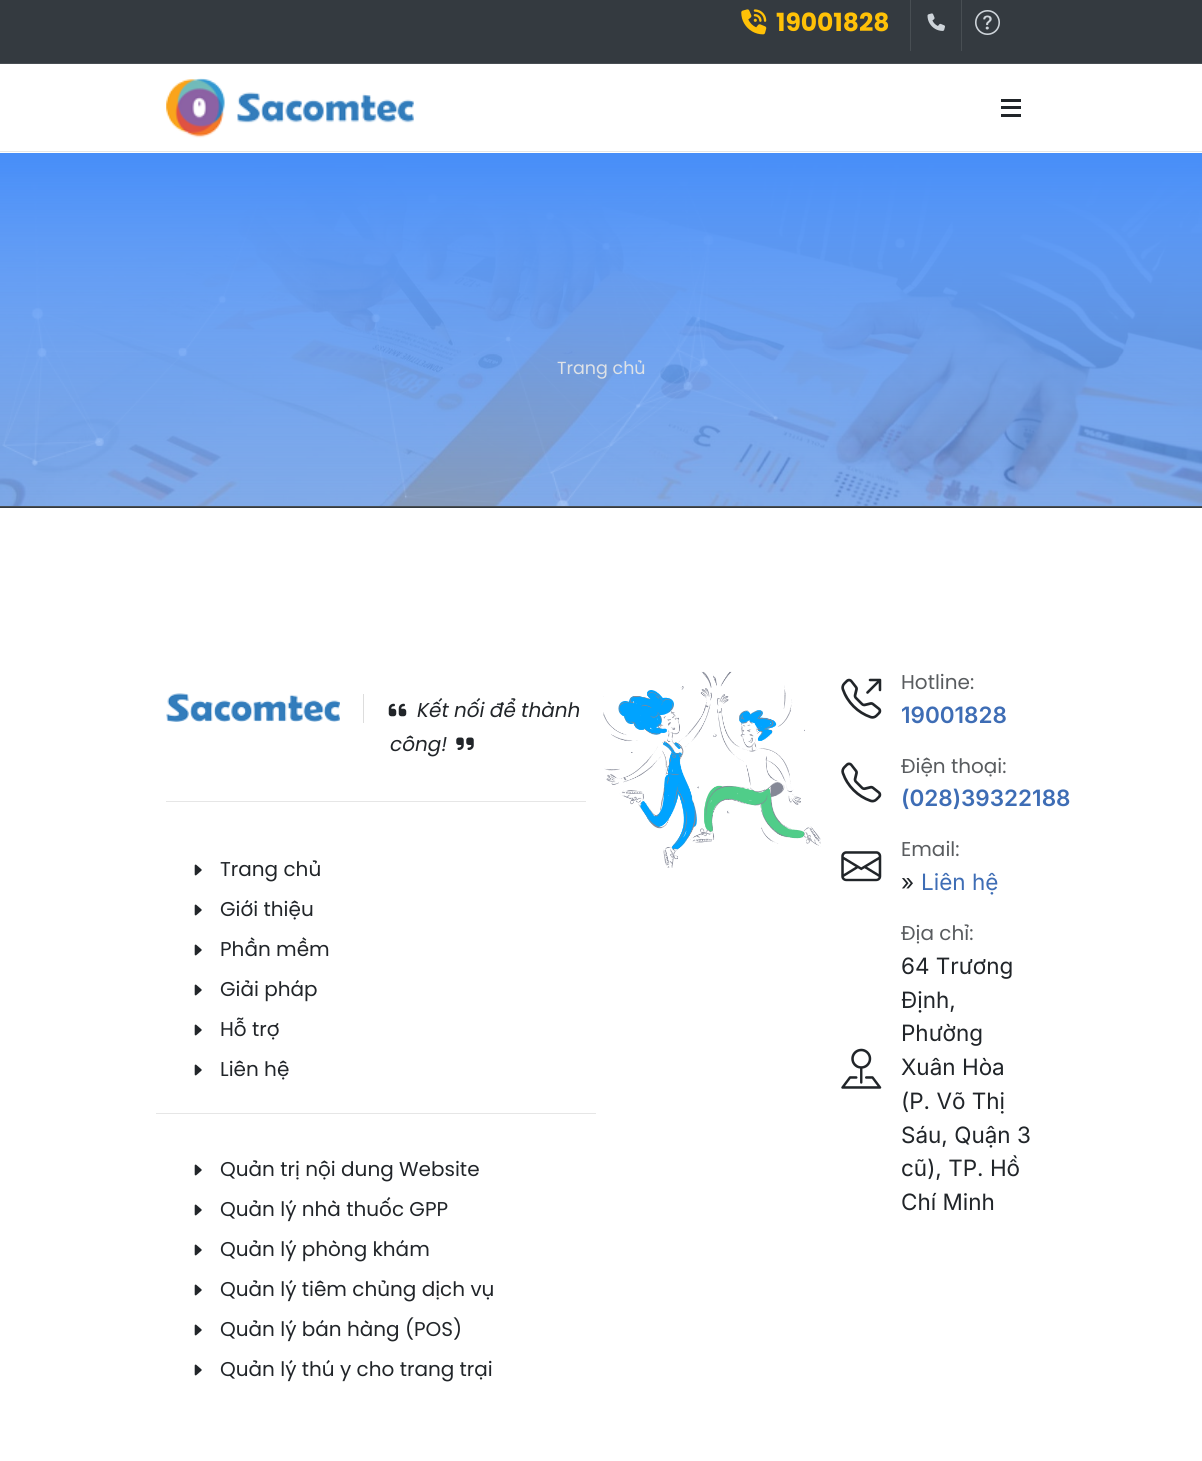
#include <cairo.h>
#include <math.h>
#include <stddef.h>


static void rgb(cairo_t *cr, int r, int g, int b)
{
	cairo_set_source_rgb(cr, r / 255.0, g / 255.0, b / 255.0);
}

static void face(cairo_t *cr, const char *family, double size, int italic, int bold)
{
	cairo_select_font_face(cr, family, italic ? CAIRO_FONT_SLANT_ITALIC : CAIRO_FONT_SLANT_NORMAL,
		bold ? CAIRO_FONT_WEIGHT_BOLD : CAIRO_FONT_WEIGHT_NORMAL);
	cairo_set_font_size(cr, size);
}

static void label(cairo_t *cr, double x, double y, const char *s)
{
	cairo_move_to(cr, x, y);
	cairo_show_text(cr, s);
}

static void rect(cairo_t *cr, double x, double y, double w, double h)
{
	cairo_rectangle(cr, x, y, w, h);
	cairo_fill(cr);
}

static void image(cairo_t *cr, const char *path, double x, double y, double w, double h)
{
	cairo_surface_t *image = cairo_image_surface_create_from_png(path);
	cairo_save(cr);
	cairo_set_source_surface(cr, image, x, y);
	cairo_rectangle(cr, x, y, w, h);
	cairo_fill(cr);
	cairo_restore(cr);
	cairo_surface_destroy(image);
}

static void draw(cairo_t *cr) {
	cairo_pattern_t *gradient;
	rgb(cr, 255, 255, 255);
	cairo_paint(cr);
	rgb(cr, 52, 58, 64);
	rect(cr, 0, 0, 1202, 63);
	rgb(cr, 72, 78, 83);
	rect(cr, 0, 63, 1202, 1);
	image(cr, "image0.png", 741, 9, 26, 26);
	face(cr, "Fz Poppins", 25, 0, 1);
	rgb(cr, 255, 193, 7);
	label(cr, 776, 31, "19001828");
	rgb(cr, 72, 78, 83);
	rect(cr, 910, 0, 1, 51);
	image(cr, "image1.png", 927, 13, 18, 18);
	rect(cr, 961, 0, 1, 51);
	image(cr, "image2.png", 975, 10, 25, 25);
	rgb(cr, 230, 230, 230);
	rect(cr, 0, 151, 1202, 1);
	image(cr, "image3.png", 166, 78, 248, 60);
	rgb(cr, 33, 37, 41);
	rect(cr, 1001, 106, 20, 3);
	rect(cr, 1001, 99, 20, 3);
	rect(cr, 1001, 114, 20, 3);
	rgb(cr, 52, 58, 64);
	rect(cr, 0, 507, 1202, 1);
	rgb(cr, 72, 78, 83);
	rect(cr, 0, 506, 1202, 1);
	image(cr, "image4.png", 0, 157, 1202, 349);
	image(cr, "image5.png", 2, 177, 903, 329);
	gradient = cairo_pattern_create_linear(601, 506, 601, 153);
	cairo_pattern_add_color_stop_rgba(gradient, 0, 0.424, 0.643, 0.973, 0.5);
	cairo_pattern_add_color_stop_rgba(gradient, 1, 0.275, 0.553, 0.973, 1);
	cairo_set_source(cr, gradient);
	cairo_pattern_destroy(gradient);
	rect(cr, 0, 153, 1202, 353);
	face(cr, "Fz Poppins", 17.5, 0, 0);
	rgb(cr, 222, 226, 230);
	label(cr, 557, 374, "Trang chủ");
	rgb(cr, 221, 221, 221);
	rect(cr, 363, 694, 1, 29);
	image(cr, "image6.png", 166, 693, 174, 29);
	image(cr, "image7.png", 388, 703, 19, 14);
	face(cr, "Fz Poppins", 20, 1, 0);
	rgb(cr, 33, 37, 41);
	label(cr, 416, 717, "Kết nối để thành");
	label(cr, 389, 751, "công!");
	image(cr, "image8.png", 456, 737, 18, 13);
	rgb(cr, 230, 230, 230);
	rect(cr, 166, 801, 420, 1);
	image(cr, "image9.png", 194, 864, 8, 12);
	face(cr, "Fz Poppins", 20, 0, 0);
	rgb(cr, 33, 37, 41);
	label(cr, 220, 876, "Trang chủ");
	image(cr, "image9.png", 194, 904, 8, 12);
	label(cr, 220, 916, "Giới thiệu");
	image(cr, "image9.png", 194, 944, 8, 12);
	label(cr, 220, 956, "Phần mềm");
	image(cr, "image9.png", 194, 984, 8, 12);
	label(cr, 220, 996, "Giải pháp");
	image(cr, "image9.png", 194, 1024, 8, 12);
	label(cr, 220, 1036, "Hỗ trợ");
	image(cr, "image9.png", 194, 1064, 8, 12);
	label(cr, 220, 1076, "Liên hệ");
	rgb(cr, 230, 230, 230);
	rect(cr, 156, 1113, 440, 1);
	image(cr, "image9.png", 194, 1164, 8, 12);
	rgb(cr, 33, 37, 41);
	label(cr, 220, 1176, "Quản trị nội dung Website");
	image(cr, "image9.png", 194, 1204, 8, 12);
	label(cr, 220, 1216, "Quản lý nhà thuốc GPP");
	image(cr, "image9.png", 194, 1244, 8, 12);
	label(cr, 220, 1256, "Quản lý phòng khám");
	image(cr, "image9.png", 194, 1284, 8, 12);
	label(cr, 220, 1296, "Quản lý tiêm chủng dịch vụ");
	image(cr, "image9.png", 194, 1324, 8, 12);
	label(cr, 220, 1336, "Quản lý bán hàng (POS)");
	image(cr, "image9.png", 194, 1364, 8, 12);
	label(cr, 220, 1376, "Quản lý thú y cho trang trại");
	image(cr, "image10.png", 603, 671, 218, 197);
	image(cr, "image11.png", 841, 678, 41, 41);
	rgb(cr, 89, 92, 95);
	label(cr, 901, 689, "Hotline:");
	face(cr, "Inter SemiBold", 22.5, 0, 0);
	rgb(cr, 62, 109, 181);
	label(cr, 901, 723, "19001828");
	image(cr, "image12.png", 841, 762, 41, 41);
	face(cr, "Fz Poppins", 20, 0, 0);
	rgb(cr, 89, 92, 95);
	label(cr, 901, 773, "Điện thoại:");
	face(cr, "Inter SemiBold", 22.5, 0, 0);
	rgb(cr, 62, 109, 181);
	label(cr, 901, 806, "(028)39322188");
	image(cr, "image13.png", 841, 851, 41, 31);
	face(cr, "Fz Poppins", 20, 0, 0);
	rgb(cr, 89, 92, 95);
	label(cr, 901, 856, "Email:");
	face(cr, "Inter", 22.5, 0, 0);
	rgb(cr, 33, 37, 41);
	label(cr, 901, 890, "»");
	rgb(cr, 62, 109, 181);
	label(cr, 921, 890, "Liên hệ");
	image(cr, "image14.png", 841, 1048, 41, 41);
	face(cr, "Fz Poppins", 20, 0, 0);
	rgb(cr, 89, 92, 95);
	label(cr, 901, 940, "Địa chỉ:");
	face(cr, "Inter", 22.5, 0, 0);
	rgb(cr, 33, 37, 41);
	label(cr, 901, 974, "64 Trương");
	label(cr, 901, 1008, "Định,");
	label(cr, 901, 1041, "Phường");
	label(cr, 901, 1075, "Xuân Hòa");
	label(cr, 901, 1109, "(P. Võ Thị");
	label(cr, 901, 1143, "Sáu, Quận 3");
	label(cr, 901, 1176, "cũ), TP. Hồ");
	label(cr, 901, 1210, "Chí Minh");
}

int main(void) {
	cairo_surface_t *surface = cairo_image_surface_create(CAIRO_FORMAT_RGB24, 1202, 1461);
	cairo_t *cr = cairo_create(surface);
	cairo_font_options_t *options = cairo_font_options_create();
	cairo_font_options_set_hint_metrics(options, CAIRO_HINT_METRICS_OFF);
	cairo_font_options_set_hint_style(options, CAIRO_HINT_STYLE_NONE);
	cairo_set_font_options(cr, options);
	cairo_set_miter_limit(cr, 4);
	draw(cr);
	cairo_surface_write_to_png(surface, "render.png");
	cairo_font_options_destroy(options);
	cairo_destroy(cr);
	cairo_surface_destroy(surface);
	return 0;
}
